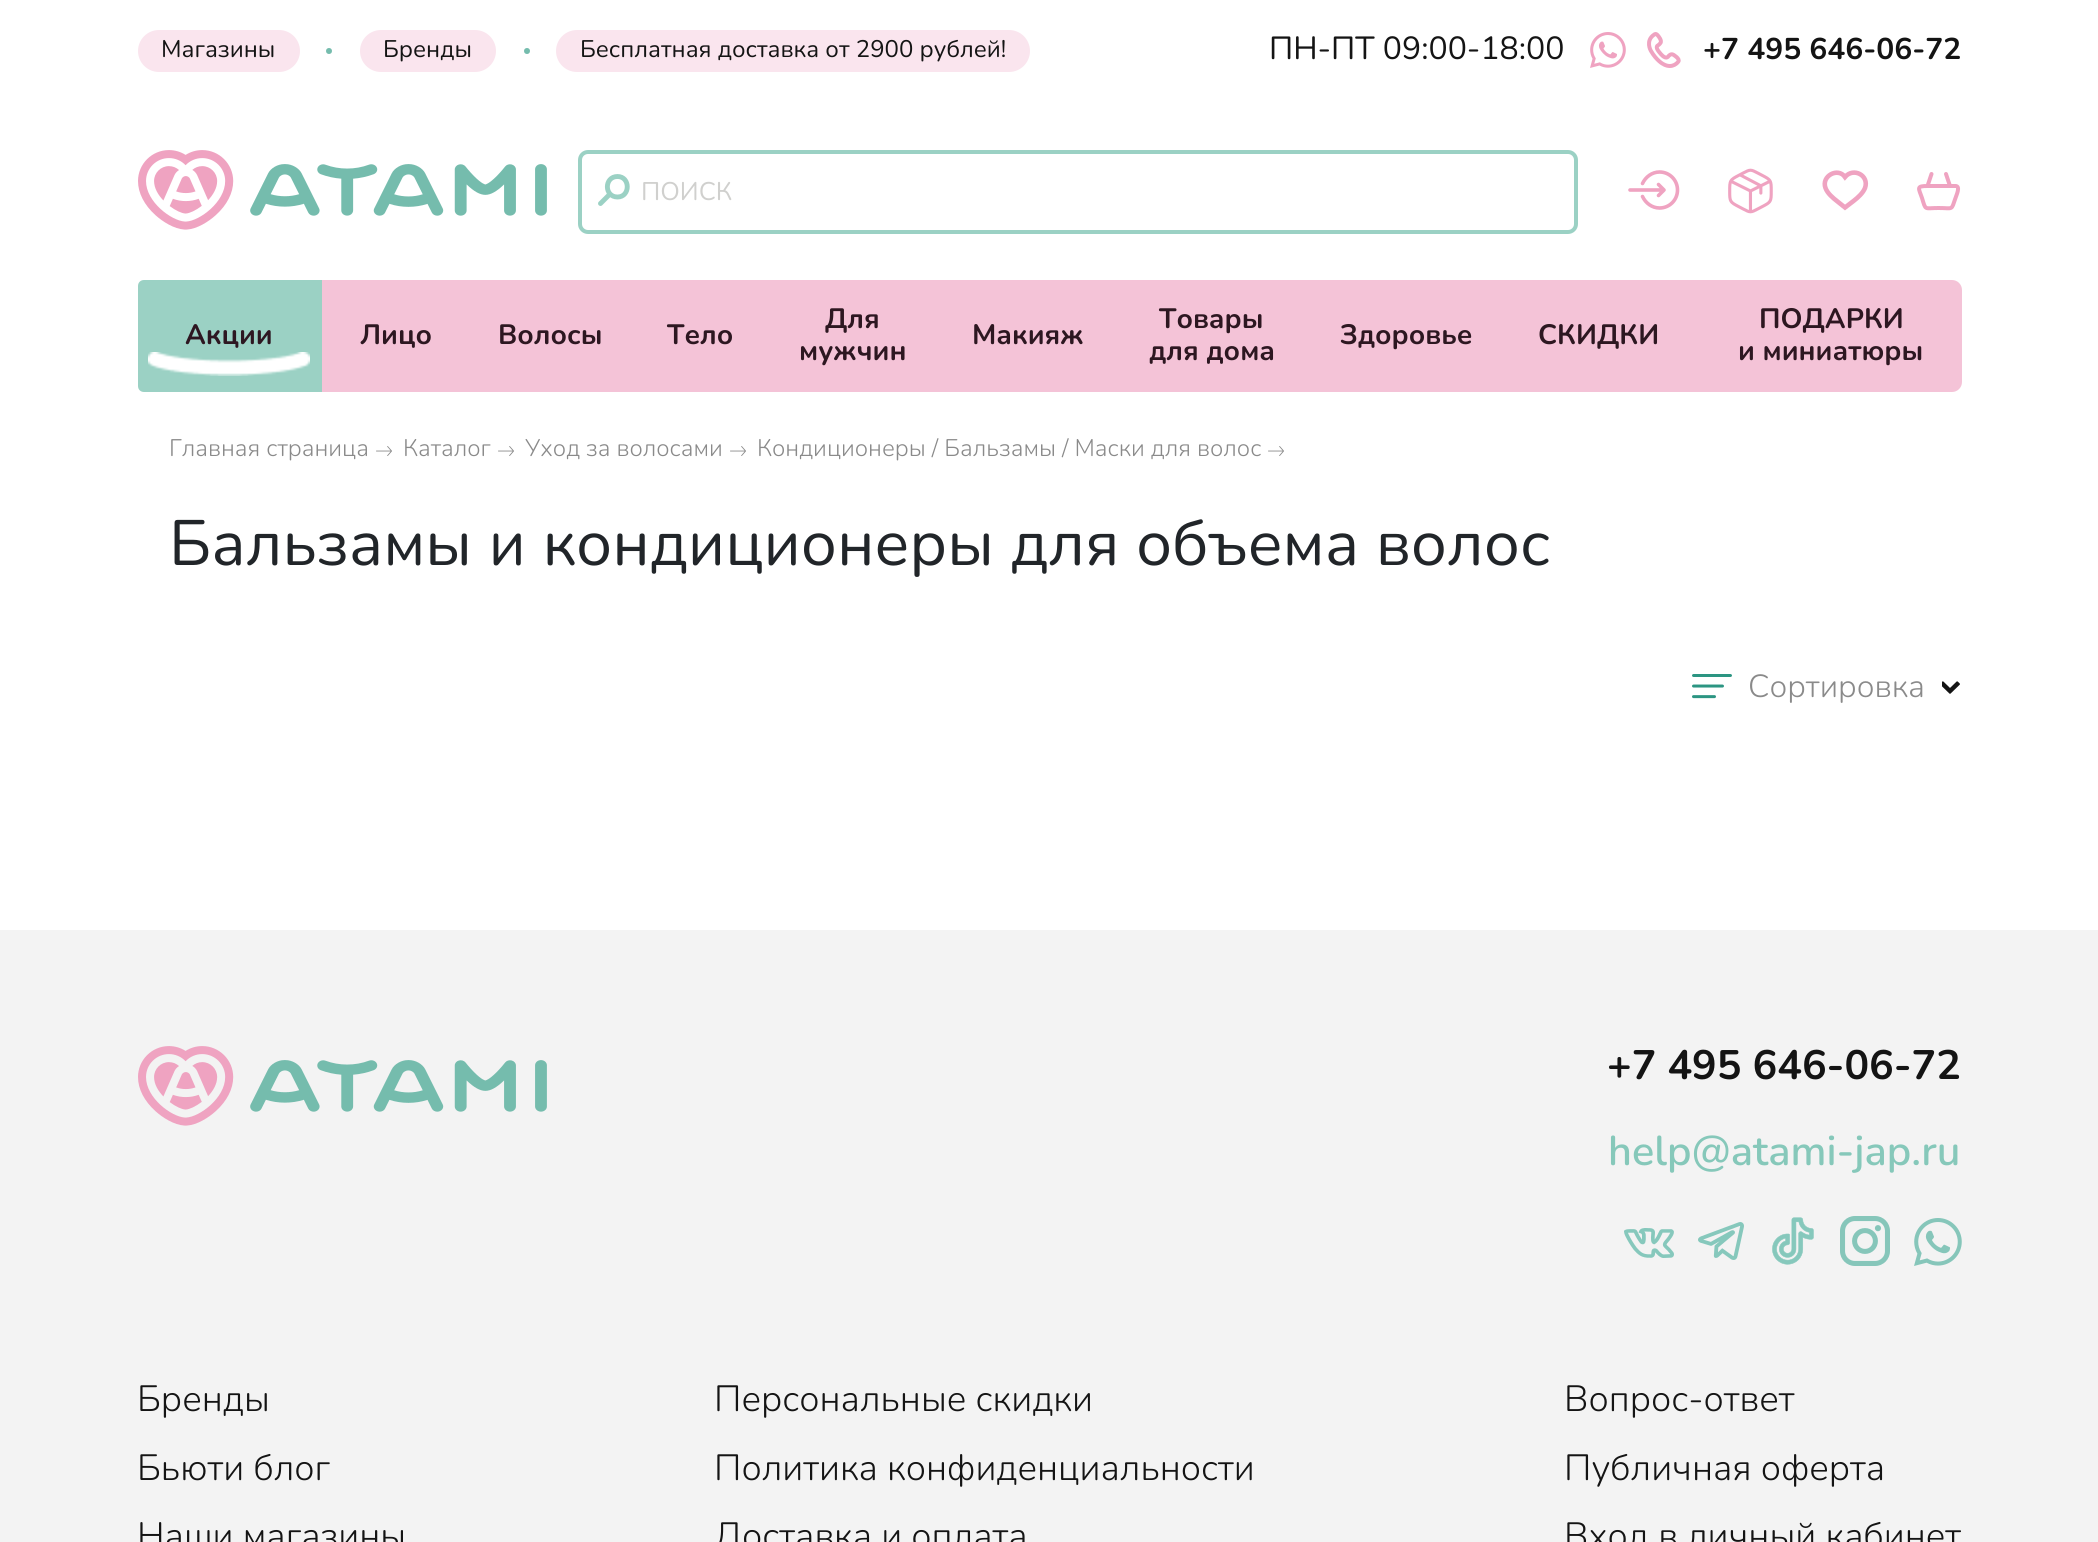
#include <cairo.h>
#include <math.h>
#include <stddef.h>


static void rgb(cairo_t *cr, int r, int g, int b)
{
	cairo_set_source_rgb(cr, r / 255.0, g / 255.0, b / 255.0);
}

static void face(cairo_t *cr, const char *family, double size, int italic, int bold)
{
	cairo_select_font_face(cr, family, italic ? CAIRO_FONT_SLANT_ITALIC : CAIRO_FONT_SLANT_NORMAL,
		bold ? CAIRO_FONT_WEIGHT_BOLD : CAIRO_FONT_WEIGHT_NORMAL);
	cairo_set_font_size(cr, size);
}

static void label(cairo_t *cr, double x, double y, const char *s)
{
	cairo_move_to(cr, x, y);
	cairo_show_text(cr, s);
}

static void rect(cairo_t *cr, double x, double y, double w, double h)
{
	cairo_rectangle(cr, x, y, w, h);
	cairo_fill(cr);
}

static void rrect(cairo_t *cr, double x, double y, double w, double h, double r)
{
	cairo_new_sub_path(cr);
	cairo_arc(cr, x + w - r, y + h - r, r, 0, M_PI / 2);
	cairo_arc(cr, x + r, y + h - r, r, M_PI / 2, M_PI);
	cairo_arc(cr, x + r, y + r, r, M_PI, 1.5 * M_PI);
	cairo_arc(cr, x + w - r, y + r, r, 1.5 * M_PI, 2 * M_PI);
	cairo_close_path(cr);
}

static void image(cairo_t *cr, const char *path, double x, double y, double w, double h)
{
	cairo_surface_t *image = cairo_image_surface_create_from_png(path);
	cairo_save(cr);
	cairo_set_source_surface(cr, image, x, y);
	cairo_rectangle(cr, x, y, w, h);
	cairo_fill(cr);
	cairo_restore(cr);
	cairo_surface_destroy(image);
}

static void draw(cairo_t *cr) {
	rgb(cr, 255, 255, 255);
	cairo_paint(cr);
	rgb(cr, 250, 229, 238);
	rrect(cr, 138, 30, 162, 42, 21);
	cairo_fill(cr);
	face(cr, "Nunito", 24, 0, 0);
	rgb(cr, 20, 20, 20);
	label(cr, 161, 57, "Магазины");
	rgb(cr, 117, 188, 173);
	cairo_new_path(cr);
	cairo_arc(cr, 329, 51, 3, 0, 2 * M_PI);
	cairo_fill(cr);
	rgb(cr, 250, 229, 238);
	rrect(cr, 360, 30, 136, 42, 21);
	cairo_fill(cr);
	rgb(cr, 20, 20, 20);
	label(cr, 383, 57, "Бренды");
	rgb(cr, 117, 188, 173);
	cairo_new_path(cr);
	cairo_arc(cr, 527, 51, 3, 0, 2 * M_PI);
	cairo_fill(cr);
	rgb(cr, 250, 229, 238);
	rrect(cr, 556, 30, 474, 42, 21);
	cairo_fill(cr);
	rgb(cr, 20, 20, 20);
	label(cr, 580, 57, "Бесплатная доставка от 2900 рублей!");
	face(cr, "Nunito", 32, 0, 0);
	label(cr, 1269, 59, "ПН-ПТ 09:00-18:00");
	image(cr, "image0.png", 1590, 32, 36, 36);
	image(cr, "image1.png", 1647, 32, 34, 36);
	face(cr, "Nunito", 30, 0, 1);
	label(cr, 1703, 59, "+7 495 646-06-72");
	image(cr, "image2.png", 138, 150, 409, 80);
	rrect(cr, 580, 152, 996, 80, 8);
	rgb(cr, 155, 209, 196);
	cairo_set_line_width(cr, 4);
	cairo_stroke(cr);
	cairo_new_path(cr);
	cairo_move_to(cr, 617.5, 197);
	cairo_curve_to(cr, 630.5, 197, 630.5, 176.5, 617.5, 176.5);
	cairo_curve_to(cr, 604, 176.5, 604, 197, 617.5, 197);
	cairo_close_path(cr);
	cairo_move_to(cr, 600.5, 203.5);
	cairo_line_to(cr, 610, 194);
	cairo_set_line_width(cr, 4.9);
	cairo_set_line_cap(cr, CAIRO_LINE_CAP_ROUND);
	cairo_set_line_join(cr, CAIRO_LINE_JOIN_ROUND);
	cairo_stroke(cr);
	face(cr, "Nunito", 25.5, 0, 0);
	rgb(cr, 208, 208, 206);
	label(cr, 641, 200, "ПОИСК");
	cairo_new_path(cr);
	cairo_move_to(cr, 1642.5, 183.5);
	cairo_curve_to(cr, 1645.5, 177, 1652, 172, 1659.5, 172);
	cairo_curve_to(cr, 1669.5, 172, 1677.5, 180, 1677.5, 190);
	cairo_curve_to(cr, 1677.5, 200, 1669.5, 208, 1659.5, 208);
	cairo_curve_to(cr, 1652, 208, 1645.5, 203, 1642.5, 196.5);
	cairo_move_to(cr, 1630, 190);
	cairo_line_to(cr, 1664, 190);
	cairo_line_to(cr, 1658.5, 184.5);
	cairo_move_to(cr, 1630, 190);
	cairo_line_to(cr, 1664, 190);
	cairo_line_to(cr, 1658.5, 195.5);
	rgb(cr, 239, 163, 193);
	cairo_set_line_width(cr, 3.6);
	cairo_stroke(cr);
	image(cr, "image3.png", 1728, 168, 45, 46);
	cairo_new_path(cr);
	cairo_move_to(cr, 1845, 177);
	cairo_curve_to(cr, 1853.5, 167, 1869.5, 175.5, 1865, 188);
	cairo_curve_to(cr, 1863, 193, 1858, 197.5, 1853.5, 201);
	cairo_line_to(cr, 1845, 207.5);
	cairo_line_to(cr, 1837.5, 201.5);
	cairo_curve_to(cr, 1833, 198, 1827.5, 193.5, 1825.5, 188);
	cairo_curve_to(cr, 1821, 176, 1838, 167, 1845, 177);
	cairo_close_path(cr);
	cairo_set_line_width(cr, 4.6);
	cairo_set_line_cap(cr, CAIRO_LINE_CAP_BUTT);
	cairo_set_line_join(cr, CAIRO_LINE_JOIN_MITER);
	cairo_stroke(cr);
	cairo_new_path(cr);
	cairo_move_to(cr, 1955.5, 186);
	cairo_line_to(cr, 1927.5, 186);
	cairo_curve_to(cr, 1916, 186, 1918.5, 188, 1922, 198);
	cairo_curve_to(cr, 1926, 211, 1924, 208, 1938.5, 208);
	cairo_curve_to(cr, 1953.5, 208, 1951, 211, 1955.5, 198);
	cairo_curve_to(cr, 1956, 196, 1961, 186, 1955.5, 186);
	cairo_close_path(cr);
	cairo_set_line_width(cr, 4);
	cairo_stroke(cr);
	cairo_new_path(cr);
	cairo_move_to(cr, 1931.5, 174);
	cairo_line_to(cr, 1927.5, 186);
	cairo_move_to(cr, 1950, 186);
	cairo_line_to(cr, 1946, 174);
	cairo_set_line_cap(cr, CAIRO_LINE_CAP_ROUND);
	cairo_set_line_join(cr, CAIRO_LINE_JOIN_ROUND);
	cairo_stroke(cr);
	rgb(cr, 244, 195, 215);
	rrect(cr, 138, 280, 1824, 112, 10);
	cairo_fill(cr);
	rgb(cr, 155, 209, 196);
	cairo_new_path(cr);
	cairo_move_to(cr, 144, 280);
	cairo_line_to(cr, 322, 280);
	cairo_line_to(cr, 322, 392);
	cairo_line_to(cr, 144, 392);
	cairo_curve_to(cr, 140.5, 392, 138, 389.5, 138, 386);
	cairo_line_to(cr, 138, 286);
	cairo_curve_to(cr, 138, 282.5, 140.5, 280, 144, 280);
	cairo_close_path(cr);
	cairo_fill(cr);
	face(cr, "Nunito", 28, 0, 1);
	rgb(cr, 45, 23, 33);
	label(cr, 185, 344, "Акции");
	image(cr, "image4.png", 148, 352, 162, 24);
	label(cr, 360, 344, "Лицо");
	label(cr, 498, 344, "Волосы");
	label(cr, 667, 344, "Тело");
	label(cr, 825, 328, "Для");
	label(cr, 799, 360, "мужчин");
	label(cr, 972, 344, "Макияж");
	label(cr, 1159, 328, "Товары");
	label(cr, 1149, 360, "для дома");
	label(cr, 1340, 344, "Здоровье");
	label(cr, 1538, 344, "СКИДКИ");
	label(cr, 1759, 328, "ПОДАРКИ");
	label(cr, 1738, 360, "и миниатюры");
	face(cr, "Nunito Light", 24, 0, 0);
	rgb(cr, 138, 138, 138);
	label(cr, 169, 456, "Главная страница");
	image(cr, "image5.png", 376, 446, 16, 10);
	label(cr, 403, 456, "Каталог");
	image(cr, "image5.png", 498, 446, 16, 10);
	label(cr, 525, 456, "Уход за волосами");
	image(cr, "image5.png", 730, 446, 16, 10);
	label(cr, 757, 456, "Кондиционеры / Бальзамы / Маски для волос");
	image(cr, "image5.png", 1268, 446, 16, 10);
	face(cr, "Nunito", 64, 0, 0);
	rgb(cr, 33, 37, 41);
	label(cr, 169, 565, "Бальзамы и кондиционеры для объема волос");
	image(cr, "image6.png", 1692, 674, 40, 25);
	face(cr, "Nunito Light", 32, 0, 0);
	rgb(cr, 138, 138, 138);
	label(cr, 1748, 697, "Сортировка");
	image(cr, "image7.png", 1942, 681, 18, 13);
	rgb(cr, 243, 243, 243);
	rect(cr, 0, 930, 2098, 612);
	image(cr, "image8.png", 138, 1046, 409, 80);
	face(cr, "Nunito", 41.1, 0, 1);
	rgb(cr, 20, 20, 20);
	label(cr, 1607, 1079, "+7 495 646-06-72");
	face(cr, "Nunito SemiBold", 41.5, 0, 0);
	rgb(cr, 134, 200, 186);
	label(cr, 1608, 1165, "help@atami-jap.ru");
	image(cr, "image9.png", 1624, 1228, 50, 30);
	image(cr, "image10.png", 1698, 1222, 46, 38);
	image(cr, "image11.png", 1772, 1217, 42, 48);
	image(cr, "image12.png", 1840, 1216, 50, 50);
	image(cr, "image13.png", 1914, 1218, 48, 48);
	face(cr, "Nunito Light", 36.5, 0, 0);
	rgb(cr, 20, 20, 20);
	label(cr, 137, 1411, "Бренды");
	label(cr, 137, 1480, "Бьюти блог");
	label(cr, 137, 1548, "Наши магазины");
	label(cr, 714, 1411, "Персональные скидки");
	label(cr, 714, 1480, "Политика конфиденциальности");
	label(cr, 714, 1548, "Доставка и оплата");
	label(cr, 1564, 1411, "Вопрос-ответ");
	label(cr, 1564, 1480, "Публичная оферта");
	label(cr, 1564, 1548, "Вход в личный кабинет");
}

int main(void) {
	cairo_surface_t *surface = cairo_image_surface_create(CAIRO_FORMAT_RGB24, 2098, 1542);
	cairo_t *cr = cairo_create(surface);
	cairo_font_options_t *options = cairo_font_options_create();
	cairo_font_options_set_hint_metrics(options, CAIRO_HINT_METRICS_OFF);
	cairo_font_options_set_hint_style(options, CAIRO_HINT_STYLE_NONE);
	cairo_set_font_options(cr, options);
	cairo_set_miter_limit(cr, 4);
	draw(cr);
	cairo_surface_write_to_png(surface, "render.png");
	cairo_font_options_destroy(options);
	cairo_destroy(cr);
	cairo_surface_destroy(surface);
	return 0;
}
